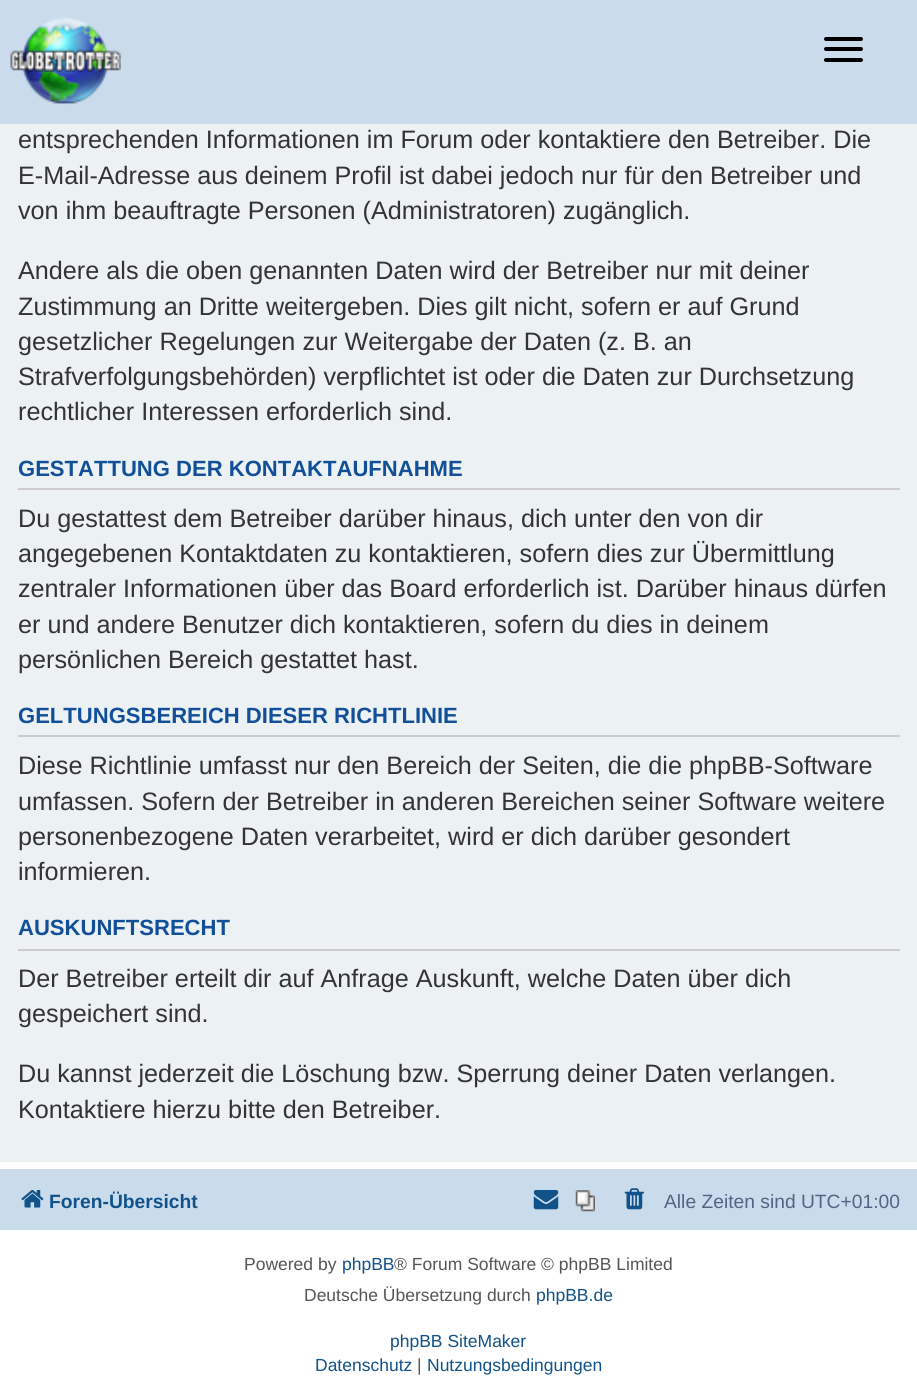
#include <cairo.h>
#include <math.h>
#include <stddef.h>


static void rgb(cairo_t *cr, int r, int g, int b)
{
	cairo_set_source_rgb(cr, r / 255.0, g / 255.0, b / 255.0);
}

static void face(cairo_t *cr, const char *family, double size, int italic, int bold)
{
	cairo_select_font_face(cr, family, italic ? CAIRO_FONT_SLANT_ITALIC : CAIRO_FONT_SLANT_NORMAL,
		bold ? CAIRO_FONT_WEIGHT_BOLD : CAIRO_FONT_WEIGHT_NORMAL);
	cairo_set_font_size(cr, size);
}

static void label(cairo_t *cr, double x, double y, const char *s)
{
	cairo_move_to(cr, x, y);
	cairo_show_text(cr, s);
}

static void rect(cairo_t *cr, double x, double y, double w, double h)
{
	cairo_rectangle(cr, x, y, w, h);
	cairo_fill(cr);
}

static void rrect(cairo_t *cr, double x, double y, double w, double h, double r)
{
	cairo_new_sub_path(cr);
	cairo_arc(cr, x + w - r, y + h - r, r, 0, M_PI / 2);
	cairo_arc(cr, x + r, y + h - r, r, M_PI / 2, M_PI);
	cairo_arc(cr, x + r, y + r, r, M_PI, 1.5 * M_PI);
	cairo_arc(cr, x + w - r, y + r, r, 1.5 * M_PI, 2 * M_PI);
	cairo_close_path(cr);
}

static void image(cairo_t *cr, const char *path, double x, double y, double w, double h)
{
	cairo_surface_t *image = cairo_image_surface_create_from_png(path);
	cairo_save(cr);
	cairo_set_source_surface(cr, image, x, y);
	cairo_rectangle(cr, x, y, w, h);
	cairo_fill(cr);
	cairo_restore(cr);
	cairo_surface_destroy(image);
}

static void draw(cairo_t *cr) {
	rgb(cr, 255, 255, 255);
	cairo_paint(cr);
	rgb(cr, 202, 220, 235);
	rect(cr, 0, 0, 917, 124);
	image(cr, "image0.png", 10, 17, 111, 88);
	rgb(cr, 0, 0, 0);
	rrect(cr, 824, 37, 39, 4, 2);
	cairo_fill(cr);
	rrect(cr, 824, 47, 39, 4, 2);
	cairo_fill(cr);
	rrect(cr, 824, 58, 39, 4, 2);
	cairo_fill(cr);
	rgb(cr, 236, 241, 243);
	rect(cr, 0, 124, 917, 1038);
	face(cr, "Liberation Sans", 25.2, 0, 0);
	rgb(cr, 51, 51, 51);
	label(cr, 18, 148, "entsprechenden Informationen im Forum oder kontaktiere den Betreiber. Die");
	label(cr, 18, 184, "E-Mail-Adresse aus deinem Profil ist dabei jedoch nur für den Betreiber und");
	label(cr, 18, 219, "von ihm beauftragte Personen (Administratoren) zugänglich.");
	label(cr, 18, 279, "Andere als die oben genannten Daten wird der Betreiber nur mit deiner");
	label(cr, 18, 315, "Zustimmung an Dritte weitergeben. Dies gilt nicht, sofern er auf Grund");
	label(cr, 18, 350, "gesetzlicher Regelungen zur Weitergabe der Daten (z. B. an");
	label(cr, 18, 385, "Strafverfolgungsbehörden) verpflichtet ist oder die Daten zur Durchsetzung");
	label(cr, 18, 420, "rechtlicher Interessen erforderlich sind.");
	rgb(cr, 204, 204, 204);
	rect(cr, 18, 488, 882, 2);
	face(cr, "Liberation Sans", 22.05, 0, 1);
	rgb(cr, 17, 80, 152);
	label(cr, 18, 476, "GESTATTUNG DER KONTAKTAUFNAHME");
	face(cr, "Liberation Sans", 25.2, 0, 0);
	rgb(cr, 51, 51, 51);
	label(cr, 18, 527, "Du gestattest dem Betreiber darüber hinaus, dich unter den von dir");
	label(cr, 18, 562, "angegebenen Kontaktdaten zu kontaktieren, sofern dies zur Übermittlung");
	label(cr, 18, 597, "zentraler Informationen über das Board erforderlich ist. Darüber hinaus dürfen");
	label(cr, 18, 633, "er und andere Benutzer dich kontaktieren, sofern du dies in deinem");
	label(cr, 18, 668, "persönlichen Bereich gestattet hast.");
	rgb(cr, 204, 204, 204);
	rect(cr, 18, 735, 882, 2);
	face(cr, "Liberation Sans", 22.05, 0, 1);
	rgb(cr, 17, 80, 152);
	label(cr, 18, 723, "GELTUNGSBEREICH DIESER RICHTLINIE");
	face(cr, "Liberation Sans", 25.2, 0, 0);
	rgb(cr, 51, 51, 51);
	label(cr, 18, 774, "Diese Richtlinie umfasst nur den Bereich der Seiten, die die phpBB-Software");
	label(cr, 18, 810, "umfassen. Sofern der Betreiber in anderen Bereichen seiner Software weitere");
	label(cr, 18, 845, "personenbezogene Daten verarbeitet, wird er dich darüber gesondert");
	label(cr, 18, 880, "informieren.");
	rgb(cr, 204, 204, 204);
	rect(cr, 18, 949, 882, 2);
	face(cr, "Liberation Sans", 22.05, 0, 1);
	rgb(cr, 17, 80, 152);
	label(cr, 18, 935, "AUSKUNFTSRECHT");
	face(cr, "Liberation Sans", 25.2, 0, 0);
	rgb(cr, 51, 51, 51);
	label(cr, 18, 987, "Der Betreiber erteilt dir auf Anfrage Auskunft, welche Daten über dich");
	label(cr, 18, 1022, "gespeichert sind.");
	label(cr, 18, 1082, "Du kannst jederzeit die Löschung bzw. Sperrung deiner Daten verlangen.");
	label(cr, 18, 1118, "Kontaktiere hierzu bitte den Betreiber.");
	rgb(cr, 202, 220, 235);
	rect(cr, 0, 1169, 917, 61);
	image(cr, "image1.png", 21, 1190, 23, 18);
	face(cr, "Liberation Sans", 19.25, 0, 1);
	rgb(cr, 16, 82, 137);
	label(cr, 49, 1208, "Foren-Übersicht");
	image(cr, "image2.png", 533, 1190, 26, 20);
	image(cr, "image3.png", 575, 1190, 20, 22);
	image(cr, "image4.png", 624, 1188, 20, 22);
	face(cr, "Liberation Sans", 19.25, 0, 0);
	rgb(cr, 83, 100, 130);
	label(cr, 664, 1208, "Alle Zeiten sind UTC+01:00");
	face(cr, "Liberation Sans", 17.5, 0, 0);
	rgb(cr, 85, 85, 85);
	label(cr, 244, 1270, "Powered by");
	rgb(cr, 16, 82, 137);
	label(cr, 342, 1270, "phpBB");
	rgb(cr, 85, 85, 85);
	label(cr, 394, 1270, "® Forum Software © phpBB Limited");
	label(cr, 304, 1301, "Deutsche Übersetzung durch");
	rgb(cr, 16, 82, 137);
	label(cr, 536, 1301, "phpBB.de");
	label(cr, 390, 1347, "phpBB SiteMaker");
	label(cr, 315, 1371, "Datenschutz");
	rgb(cr, 85, 85, 85);
	label(cr, 417, 1371, "|");
	rgb(cr, 16, 82, 137);
	label(cr, 427, 1371, "Nutzungsbedingungen");
}

int main(void) {
	cairo_surface_t *surface = cairo_image_surface_create(CAIRO_FORMAT_RGB24, 917, 1397);
	cairo_t *cr = cairo_create(surface);
	cairo_font_options_t *options = cairo_font_options_create();
	cairo_font_options_set_hint_metrics(options, CAIRO_HINT_METRICS_OFF);
	cairo_font_options_set_hint_style(options, CAIRO_HINT_STYLE_NONE);
	cairo_set_font_options(cr, options);
	cairo_set_miter_limit(cr, 4);
	draw(cr);
	cairo_surface_write_to_png(surface, "render.png");
	cairo_font_options_destroy(options);
	cairo_destroy(cr);
	cairo_surface_destroy(surface);
	return 0;
}
